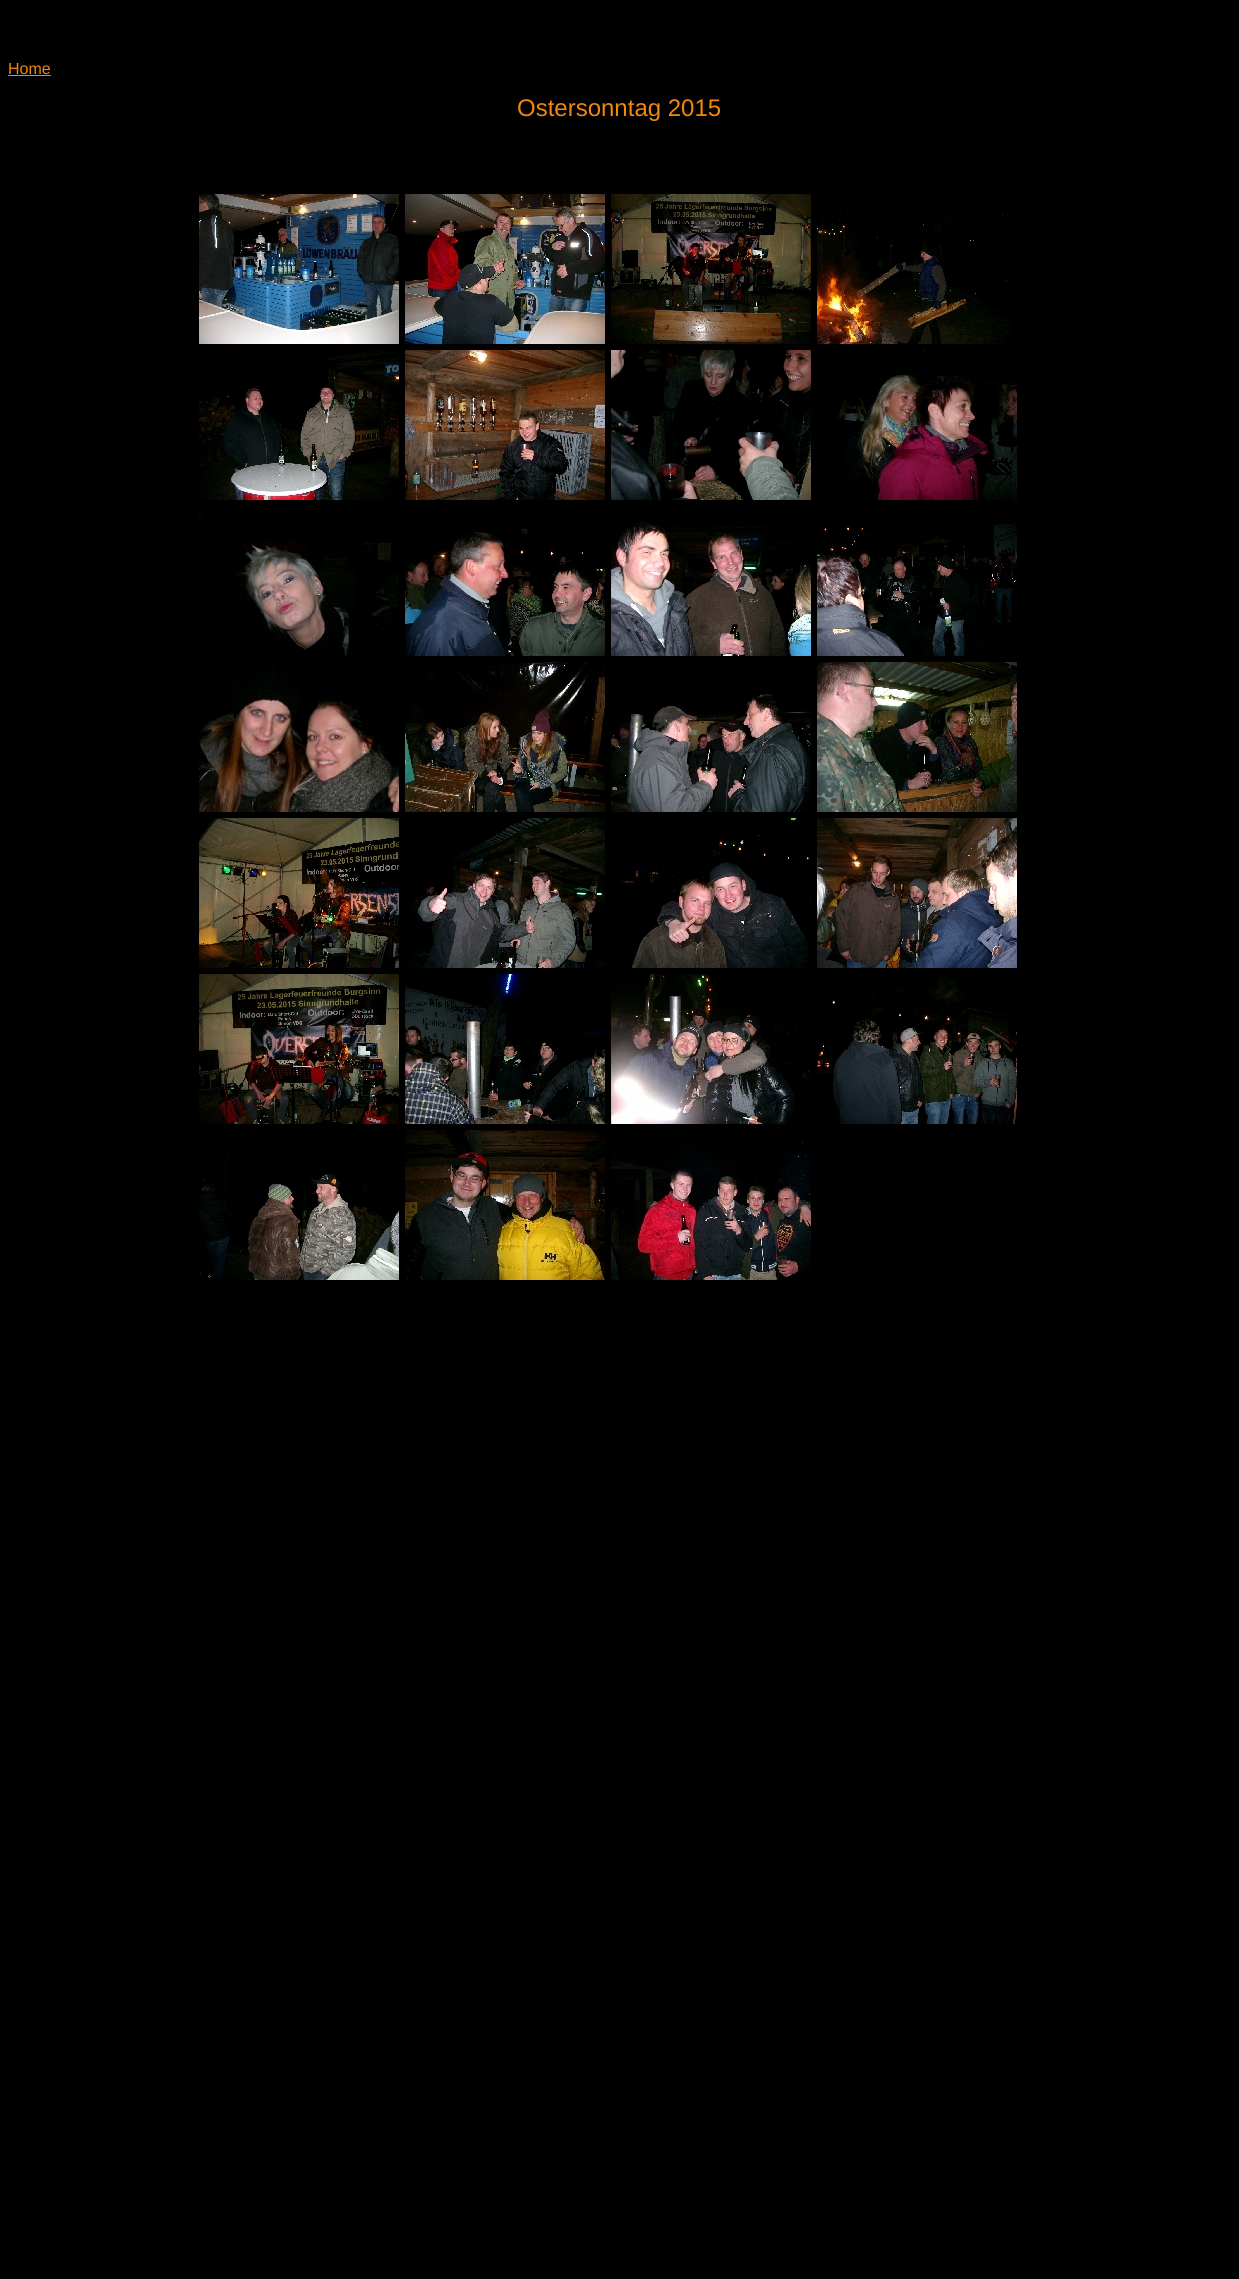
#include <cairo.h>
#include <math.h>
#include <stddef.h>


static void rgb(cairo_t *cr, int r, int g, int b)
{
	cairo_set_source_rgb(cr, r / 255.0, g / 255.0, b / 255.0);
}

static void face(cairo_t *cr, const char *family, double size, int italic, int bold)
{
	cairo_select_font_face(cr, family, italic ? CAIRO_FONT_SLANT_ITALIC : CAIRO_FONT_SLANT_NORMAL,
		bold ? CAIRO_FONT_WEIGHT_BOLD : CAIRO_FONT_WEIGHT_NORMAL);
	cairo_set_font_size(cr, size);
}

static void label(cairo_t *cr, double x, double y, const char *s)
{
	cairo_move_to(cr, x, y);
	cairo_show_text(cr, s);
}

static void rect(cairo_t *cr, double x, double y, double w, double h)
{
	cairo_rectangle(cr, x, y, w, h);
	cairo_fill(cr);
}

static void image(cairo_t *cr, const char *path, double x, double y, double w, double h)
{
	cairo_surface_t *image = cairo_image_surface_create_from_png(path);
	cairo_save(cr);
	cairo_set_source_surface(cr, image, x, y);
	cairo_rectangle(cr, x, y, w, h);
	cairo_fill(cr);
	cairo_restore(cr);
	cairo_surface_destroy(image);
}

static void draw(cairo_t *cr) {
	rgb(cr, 0, 0, 0);
	cairo_paint(cr);
	face(cr, "Liberation Sans", 16, 0, 0);
	rgb(cr, 241, 135, 14);
	label(cr, 8, 74, "Home");
	rect(cr, 8, 75, 43, 1);
	face(cr, "Liberation Sans", 24, 0, 0);
	label(cr, 517, 116, "Ostersonntag 2015");
	image(cr, "image0.png", 199, 194, 200, 150);
	image(cr, "image1.png", 405, 194, 200, 150);
	image(cr, "image2.png", 611, 194, 200, 150);
	image(cr, "image3.png", 817, 194, 195, 150);
	image(cr, "image4.png", 199, 350, 200, 150);
	image(cr, "image5.png", 405, 350, 200, 150);
	image(cr, "image6.png", 611, 350, 200, 150);
	image(cr, "image7.png", 833, 350, 184, 150);
	image(cr, "image8.png", 199, 506, 200, 150);
	image(cr, "image9.png", 405, 506, 200, 150);
	image(cr, "image10.png", 611, 506, 200, 150);
	image(cr, "image11.png", 817, 506, 200, 150);
	image(cr, "image12.png", 199, 662, 200, 150);
	image(cr, "image13.png", 405, 662, 200, 150);
	image(cr, "image14.png", 611, 694, 200, 118);
	image(cr, "image15.png", 817, 662, 200, 150);
	image(cr, "image16.png", 199, 818, 200, 150);
	image(cr, "image17.png", 406, 818, 199, 150);
	image(cr, "image18.png", 621, 818, 190, 150);
	image(cr, "image19.png", 817, 818, 200, 150);
	image(cr, "image20.png", 199, 974, 200, 150);
	image(cr, "image21.png", 405, 974, 200, 150);
	image(cr, "image22.png", 611, 974, 200, 150);
	image(cr, "image23.png", 817, 974, 200, 150);
	image(cr, "image24.png", 199, 1130, 200, 150);
	image(cr, "image25.png", 405, 1130, 200, 150);
	image(cr, "image26.png", 611, 1130, 200, 150);
}

int main(void) {
	cairo_surface_t *surface = cairo_image_surface_create(CAIRO_FORMAT_RGB24, 1239, 2279);
	cairo_t *cr = cairo_create(surface);
	cairo_font_options_t *options = cairo_font_options_create();
	cairo_font_options_set_hint_metrics(options, CAIRO_HINT_METRICS_OFF);
	cairo_font_options_set_hint_style(options, CAIRO_HINT_STYLE_NONE);
	cairo_set_font_options(cr, options);
	cairo_set_miter_limit(cr, 4);
	draw(cr);
	cairo_surface_write_to_png(surface, "render.png");
	cairo_font_options_destroy(options);
	cairo_destroy(cr);
	cairo_surface_destroy(surface);
	return 0;
}
